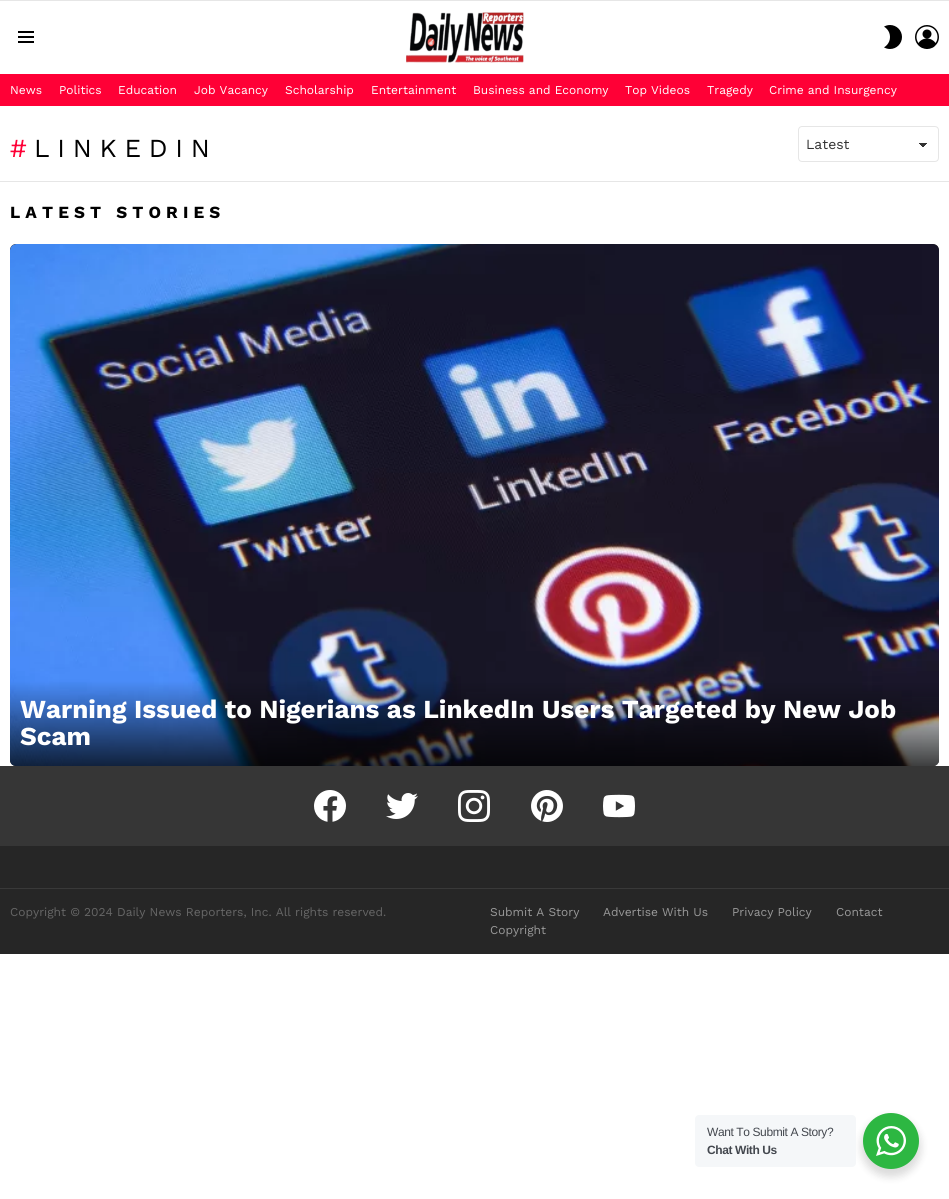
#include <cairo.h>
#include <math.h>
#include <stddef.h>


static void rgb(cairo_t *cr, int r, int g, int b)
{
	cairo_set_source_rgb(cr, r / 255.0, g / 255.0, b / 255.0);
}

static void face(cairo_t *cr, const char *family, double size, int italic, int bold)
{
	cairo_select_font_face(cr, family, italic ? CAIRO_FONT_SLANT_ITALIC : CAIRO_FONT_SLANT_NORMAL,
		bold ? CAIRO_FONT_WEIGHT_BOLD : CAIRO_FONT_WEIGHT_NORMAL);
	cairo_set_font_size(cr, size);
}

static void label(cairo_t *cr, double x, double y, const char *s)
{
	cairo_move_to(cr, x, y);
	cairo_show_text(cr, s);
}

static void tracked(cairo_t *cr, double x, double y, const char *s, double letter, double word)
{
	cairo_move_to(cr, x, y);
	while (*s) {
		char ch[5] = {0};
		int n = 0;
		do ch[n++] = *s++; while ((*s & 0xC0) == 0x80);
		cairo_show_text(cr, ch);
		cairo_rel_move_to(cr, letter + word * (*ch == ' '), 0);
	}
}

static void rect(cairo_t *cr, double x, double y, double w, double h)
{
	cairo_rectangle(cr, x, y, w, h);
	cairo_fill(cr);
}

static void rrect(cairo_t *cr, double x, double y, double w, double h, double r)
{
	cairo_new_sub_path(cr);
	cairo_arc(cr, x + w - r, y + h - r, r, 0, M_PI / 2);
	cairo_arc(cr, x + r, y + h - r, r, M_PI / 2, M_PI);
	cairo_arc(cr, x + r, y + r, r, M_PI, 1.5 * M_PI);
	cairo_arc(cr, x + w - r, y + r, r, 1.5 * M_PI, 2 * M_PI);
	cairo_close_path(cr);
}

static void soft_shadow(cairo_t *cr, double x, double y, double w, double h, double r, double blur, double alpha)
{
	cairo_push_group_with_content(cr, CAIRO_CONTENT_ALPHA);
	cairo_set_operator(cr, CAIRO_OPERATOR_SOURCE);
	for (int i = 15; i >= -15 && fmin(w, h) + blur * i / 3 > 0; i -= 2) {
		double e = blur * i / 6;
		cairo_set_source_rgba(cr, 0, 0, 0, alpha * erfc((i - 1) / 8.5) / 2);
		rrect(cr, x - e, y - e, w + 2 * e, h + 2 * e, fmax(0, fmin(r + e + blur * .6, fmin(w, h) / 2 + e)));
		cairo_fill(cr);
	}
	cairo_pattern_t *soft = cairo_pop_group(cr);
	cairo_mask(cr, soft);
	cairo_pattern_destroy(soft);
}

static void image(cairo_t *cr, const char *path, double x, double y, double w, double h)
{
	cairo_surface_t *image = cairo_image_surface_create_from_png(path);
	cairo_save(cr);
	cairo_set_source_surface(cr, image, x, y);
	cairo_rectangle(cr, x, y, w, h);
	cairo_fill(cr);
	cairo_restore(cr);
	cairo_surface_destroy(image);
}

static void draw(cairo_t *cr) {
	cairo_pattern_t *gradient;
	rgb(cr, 255, 255, 255);
	cairo_paint(cr);
	rgb(cr, 230, 230, 230);
	rect(cr, 0, 0, 949, 1);
	image(cr, "image0.png", 18, 31, 16, 12);
	image(cr, "image1.png", 406, 12, 118, 51);
	image(cr, "image2.png", 884, 25, 18, 24);
	image(cr, "image3.png", 915, 25, 24, 24);
	rgb(cr, 255, 0, 54);
	rect(cr, 0, 74, 949, 32);
	face(cr, "Work Sans", 12, 0, 0);
	rgb(cr, 255, 255, 255);
	label(cr, 10, 94, "News");
	label(cr, 59, 94, "Politics");
	label(cr, 118, 94, "Education");
	label(cr, 194, 94, "Job Vacancy");
	label(cr, 285, 94, "Scholarship");
	label(cr, 371, 94, "Entertainment");
	label(cr, 473, 94, "Business and Economy");
	label(cr, 625, 94, "Top Videos");
	label(cr, 707, 94, "Tragedy");
	label(cr, 769, 94, "Crime and Insurgency");
	face(cr, "Work Sans", 26, 0, 0);
	rgb(cr, 255, 0, 54);
	tracked(cr, 10, 157, "#", 7.75, 0);
	rgb(cr, 0, 0, 0);
	tracked(cr, 34, 157, "LINKEDIN", 7.75, 0);
	gradient = cairo_pattern_create_linear(923, 143, 928, 147);
	cairo_pattern_add_color_stop_rgba(gradient, 0.5, 0.2, 0.2, 0.2, 1);
	cairo_pattern_add_color_stop_rgba(gradient, 0.5, 1, 1, 1, 1);
	cairo_set_source(cr, gradient);
	cairo_pattern_destroy(gradient);
	rect(cr, 923, 143, 5, 4);
	gradient = cairo_pattern_create_linear(918, 147, 923, 143);
	cairo_pattern_add_color_stop_rgba(gradient, 0.5, 1, 1, 1, 1);
	cairo_pattern_add_color_stop_rgba(gradient, 0.5, 0.2, 0.2, 0.2, 1);
	cairo_set_source(cr, gradient);
	cairo_pattern_destroy(gradient);
	rect(cr, 918, 143, 5, 4);
	rrect(cr, 798.5, 126.5, 140, 35, 3.5);
	rgb(cr, 230, 230, 230);
	cairo_set_line_width(cr, 1);
	cairo_stroke(cr);
	face(cr, "Work Sans", 14, 0, 0);
	rgb(cr, 51, 51, 51);
	label(cr, 806, 149, "Latest");
	rgb(cr, 230, 230, 230);
	rect(cr, 0, 181, 949, 1);
	face(cr, "Work Sans", 17, 0, 1);
	rgb(cr, 0, 0, 0);
	tracked(cr, 10, 218, "LATEST STORIES", 5.1, 0);
	rgb(cr, 51, 51, 51);
	rrect(cr, 10, 244, 929, 522, 6);
	cairo_fill(cr);
	image(cr, "image4.png", 10, 244, 929, 522);
	gradient = cairo_pattern_create_linear(475, 681, 475, 766);
	cairo_pattern_add_color_stop_rgba(gradient, 0, 0, 0, 0, 0);
	cairo_pattern_add_color_stop_rgba(gradient, 1, 0, 0, 0, 0.75);
	cairo_set_source(cr, gradient);
	cairo_pattern_destroy(gradient);
	cairo_new_path(cr);
	cairo_move_to(cr, 10, 681);
	cairo_line_to(cr, 939, 681);
	cairo_line_to(cr, 939, 760);
	cairo_curve_to(cr, 939, 763.5, 936.5, 766, 933, 766);
	cairo_line_to(cr, 16, 766);
	cairo_curve_to(cr, 12.5, 766, 10, 763.5, 10, 760);
	cairo_close_path(cr);
	cairo_fill(cr);
	face(cr, "Work Sans", 26, 0, 1);
	rgb(cr, 255, 255, 255);
	label(cr, 20, 718, "Warning Issued to Nigerians as LinkedIn Users Targeted by New Job");
	label(cr, 20, 745, "Scam");
	rgb(cr, 54, 54, 54);
	rect(cr, 0, 766, 949, 80);
	image(cr, "image5.png", 314, 790, 32, 32);
	image(cr, "image6.png", 386, 793, 32, 26);
	image(cr, "image7.png", 458, 790, 32, 32);
	image(cr, "image8.png", 531, 790, 32, 32);
	image(cr, "image9.png", 603, 794, 32, 24);
	rgb(cr, 38, 38, 38);
	rect(cr, 0, 846, 949, 42);
	rgb(cr, 57, 57, 57);
	rect(cr, 0, 888, 949, 1);
	rgb(cr, 38, 38, 38);
	rect(cr, 0, 889, 949, 65);
	face(cr, "Work Sans", 12, 0, 0);
	rgb(cr, 102, 102, 102);
	label(cr, 10, 916, "Copyright © 2024 Daily News Reporters, Inc. All rights reserved.");
	rgb(cr, 153, 153, 153);
	label(cr, 490, 916, "Submit A Story");
	label(cr, 603, 916, "Advertise With Us");
	label(cr, 732, 916, "Privacy Policy");
	label(cr, 836, 916, "Contact");
	label(cr, 490, 934, "Copyright");
	rgb(cr, 0, 0, 0);
	soft_shadow(cr, 861, 1117, 60, 60, 30, 4, 0.14);
	rgb(cr, 245, 247, 249);
	rrect(cr, 695, 1115, 161, 52, 4);
	cairo_fill(cr);
	face(cr, "Liberation Sans", 12, 0, 0);
	rgb(cr, 67, 71, 78);
	tracked(cr, 707, 1136, "Want To Submit A Story?", -0.4, 0);
	face(cr, "Liberation Sans", 12, 0, 1);
	tracked(cr, 707, 1154, "Chat With Us", -0.4, 0);
	rgb(cr, 45, 183, 66);
	cairo_new_path(cr);
	cairo_arc(cr, 891, 1141, 28, 0, 2 * M_PI);
	cairo_fill(cr);
	image(cr, "image10.png", 876, 1126, 30, 30);
}

int main(void) {
	cairo_surface_t *surface = cairo_image_surface_create(CAIRO_FORMAT_RGB24, 949, 1199);
	cairo_t *cr = cairo_create(surface);
	cairo_font_options_t *options = cairo_font_options_create();
	cairo_font_options_set_hint_metrics(options, CAIRO_HINT_METRICS_OFF);
	cairo_font_options_set_hint_style(options, CAIRO_HINT_STYLE_NONE);
	cairo_set_font_options(cr, options);
	cairo_set_miter_limit(cr, 4);
	draw(cr);
	cairo_surface_write_to_png(surface, "render.png");
	cairo_font_options_destroy(options);
	cairo_destroy(cr);
	cairo_surface_destroy(surface);
	return 0;
}
